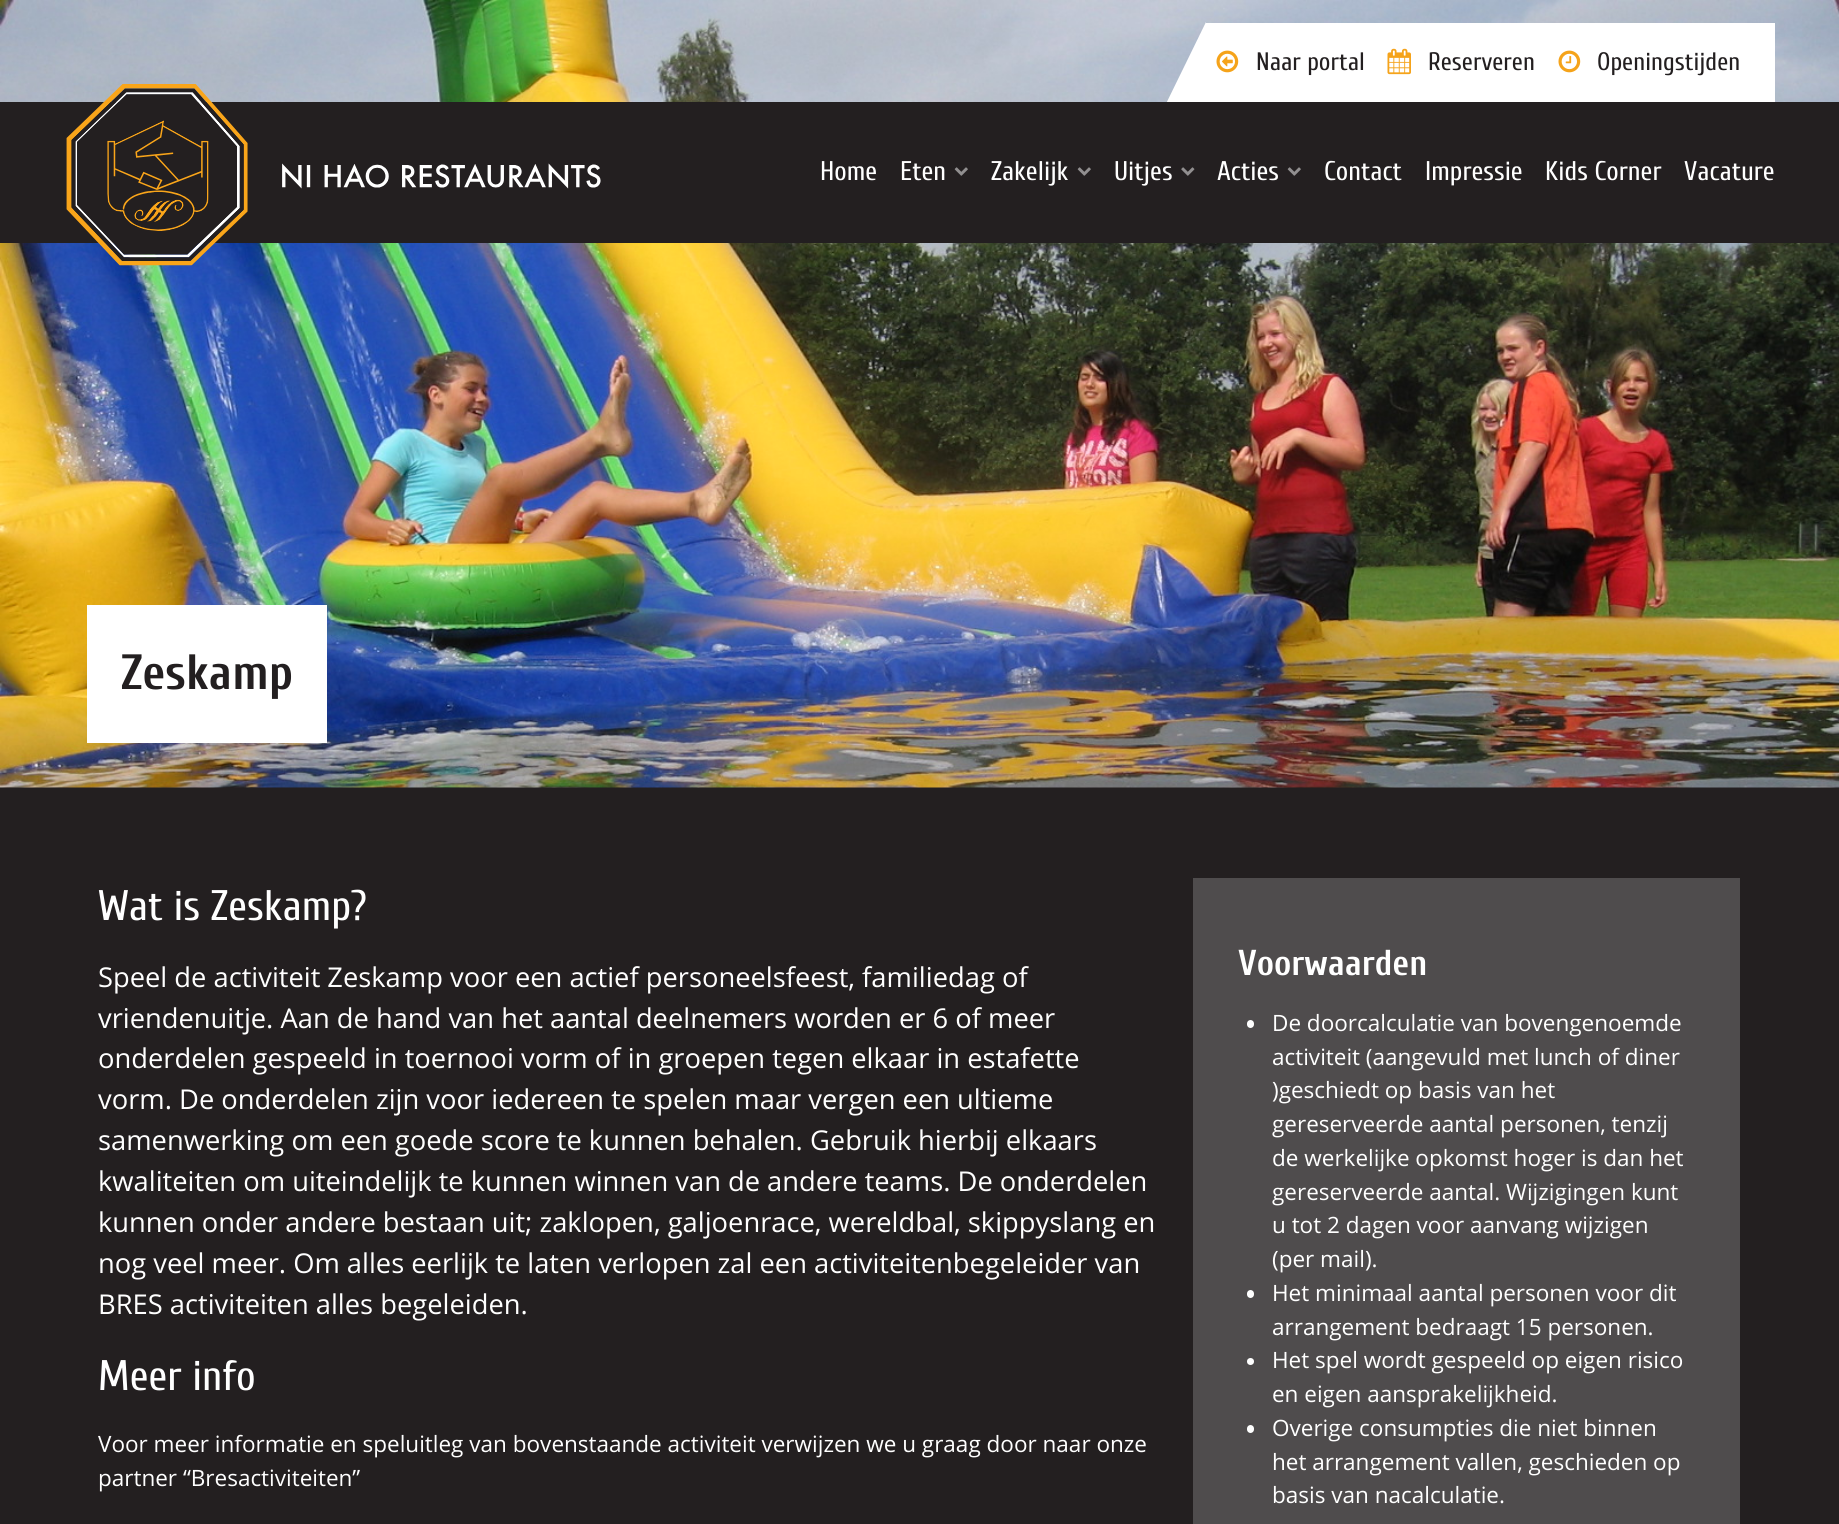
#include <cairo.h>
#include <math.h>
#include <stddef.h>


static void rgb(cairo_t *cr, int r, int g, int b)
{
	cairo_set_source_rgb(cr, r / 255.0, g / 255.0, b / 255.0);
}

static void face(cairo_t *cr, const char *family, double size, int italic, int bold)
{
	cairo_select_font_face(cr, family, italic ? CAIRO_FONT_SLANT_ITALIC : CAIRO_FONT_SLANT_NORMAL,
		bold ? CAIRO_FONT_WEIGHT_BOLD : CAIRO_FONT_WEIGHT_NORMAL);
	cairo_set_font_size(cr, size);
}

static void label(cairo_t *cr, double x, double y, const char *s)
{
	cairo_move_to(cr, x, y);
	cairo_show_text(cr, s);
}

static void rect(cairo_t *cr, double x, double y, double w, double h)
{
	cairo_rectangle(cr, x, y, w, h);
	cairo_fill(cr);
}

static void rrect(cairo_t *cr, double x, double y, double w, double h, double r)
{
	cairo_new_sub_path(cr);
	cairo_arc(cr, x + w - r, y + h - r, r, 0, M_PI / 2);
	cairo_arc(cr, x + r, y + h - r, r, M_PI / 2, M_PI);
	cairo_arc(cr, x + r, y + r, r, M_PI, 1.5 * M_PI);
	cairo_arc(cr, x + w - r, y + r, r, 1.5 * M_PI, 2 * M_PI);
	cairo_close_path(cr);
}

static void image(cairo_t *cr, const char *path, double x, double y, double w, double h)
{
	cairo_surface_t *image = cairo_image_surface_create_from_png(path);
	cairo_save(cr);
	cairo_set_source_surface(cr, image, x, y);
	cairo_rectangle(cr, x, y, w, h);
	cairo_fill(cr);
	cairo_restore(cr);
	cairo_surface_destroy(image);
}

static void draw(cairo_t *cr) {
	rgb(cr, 35, 31, 32);
	cairo_paint(cr);
	image(cr, "image6.png", 0, 0, 1839, 788);
	rgb(cr, 255, 255, 255);
	rect(cr, 1206, 23, 569, 79);
	cairo_save(cr);
	cairo_rectangle(cr, 65, 0, 1710, 102);
	cairo_clip(cr);
	cairo_new_path(cr);
	cairo_move_to(cr, 1206, 22);
	cairo_line_to(cr, 1206, 114);
	cairo_line_to(cr, 1161, 114);
	cairo_close_path(cr);
	cairo_fill(cr);
	cairo_restore(cr);
	image(cr, "image0.png", 1216, 50, 23, 23);
	face(cr, "Cuprum", 25.25, 0, 0);
	rgb(cr, 35, 31, 32);
	label(cr, 1256, 70, "Naar portal");
	image(cr, "image1.png", 1387, 48, 24, 27);
	label(cr, 1428, 70, "Reserveren");
	image(cr, "image2.png", 1558, 50, 23, 23);
	label(cr, 1597, 70, "Openingstijden");
	rect(cr, 0, 102, 1839, 141);
	image(cr, "image3.png", 66, 84, 535, 182);
	face(cr, "Cuprum", 27, 0, 0);
	rgb(cr, 255, 255, 255);
	label(cr, 820, 180, "Home");
	label(cr, 900, 180, "Eten");
	image(cr, "image4.png", 954, 167, 14, 9);
	label(cr, 991, 180, "Zakelijk");
	image(cr, "image4.png", 1077, 167, 14, 9);
	label(cr, 1114, 180, "Uitjes");
	image(cr, "image5.png", 1181, 167, 14, 9);
	label(cr, 1217, 180, "Acties");
	image(cr, "image4.png", 1287, 167, 14, 9);
	label(cr, 1324, 180, "Contact");
	label(cr, 1425, 180, "Impressie");
	label(cr, 1545, 180, "Kids Corner");
	label(cr, 1684, 180, "Vacature");
	rect(cr, 87, 605, 240, 138);
	face(cr, "Cuprum", 49.5, 0, 1);
	rgb(cr, 35, 31, 32);
	label(cr, 121, 689, "Zeskamp");
	face(cr, "Cuprum", 42.75, 0, 0);
	rgb(cr, 255, 255, 255);
	label(cr, 98, 920, "Wat is Zeskamp?");
	face(cr, "Open Sans", 27.3, 0, 0);
	label(cr, 98, 987, "Speel de activiteit Zeskamp voor een actief personeelsfeest, familiedag of");
	label(cr, 98, 1028, "vriendenuitje. Aan de hand van het aantal deelnemers worden er 6 of meer");
	label(cr, 98, 1068, "onderdelen gespeeld in toernooi vorm of in groepen tegen elkaar in estafette");
	label(cr, 98, 1109, "vorm. De onderdelen zijn voor iedereen te spelen maar vergen een ultieme");
	label(cr, 98, 1150, "samenwerking om een goede score te kunnen behalen. Gebruik hierbij elkaars");
	label(cr, 98, 1191, "kwaliteiten om uiteindelijk te kunnen winnen van de andere teams. De onderdelen");
	label(cr, 98, 1232, "kunnen onder andere bestaan uit; zaklopen, galjoenrace, wereldbal, skippyslang en");
	label(cr, 98, 1273, "nog veel meer. Om alles eerlijk te laten verlopen zal een activiteitenbegeleider van");
	label(cr, 98, 1314, "BRES activiteiten alles begeleiden.");
	face(cr, "Cuprum", 42.75, 0, 0);
	label(cr, 98, 1390, "Meer info");
	face(cr, "Open Sans", 22.5, 0, 0);
	label(cr, 98, 1452, "Voor meer informatie en speluitleg van bovenstaande activiteit verwijzen we u graag door naar onze");
	label(cr, 98, 1486, "partner “Bresactiviteiten”");
	rgb(cr, 79, 76, 77);
	rect(cr, 1193, 878, 547, 646);
	face(cr, "Cuprum", 36, 0, 1);
	rgb(cr, 255, 255, 255);
	label(cr, 1238, 975, "Voorwaarden");
	rrect(cr, 1247, 1020, 7, 8, 3.5);
	cairo_fill(cr);
	face(cr, "Open Sans", 22.5, 0, 0);
	label(cr, 1272, 1031, "De doorcalculatie van bovengenoemde");
	label(cr, 1272, 1065, "activiteit (aangevuld met lunch of diner");
	label(cr, 1272, 1098, ")geschiedt op basis van het");
	label(cr, 1272, 1132, "gereserveerde aantal personen, tenzij");
	label(cr, 1272, 1166, "de werkelijke opkomst hoger is dan het");
	label(cr, 1272, 1200, "gereserveerde aantal. Wijzigingen kunt");
	label(cr, 1272, 1233, "u tot 2 dagen voor aanvang wijzigen");
	label(cr, 1272, 1267, "(per mail).");
	rrect(cr, 1247, 1290, 7, 8, 3.5);
	cairo_fill(cr);
	label(cr, 1272, 1301, "Het minimaal aantal personen voor dit");
	label(cr, 1272, 1335, "arrangement bedraagt 15 personen.");
	cairo_new_path(cr);
	cairo_arc(cr, 1250.5, 1361.5, 3.5, 0, 2 * M_PI);
	cairo_fill(cr);
	label(cr, 1272, 1368, "Het spel wordt gespeeld op eigen risico");
	label(cr, 1272, 1402, "en eigen aansprakelijkheid.");
	rrect(cr, 1247, 1425, 7, 8, 3.5);
	cairo_fill(cr);
	label(cr, 1272, 1436, "Overige consumpties die niet binnen");
	label(cr, 1272, 1470, "het arrangement vallen, geschieden op");
	label(cr, 1272, 1503, "basis van nacalculatie.");
}

int main(void) {
	cairo_surface_t *surface = cairo_image_surface_create(CAIRO_FORMAT_RGB24, 1839, 1524);
	cairo_t *cr = cairo_create(surface);
	cairo_font_options_t *options = cairo_font_options_create();
	cairo_font_options_set_hint_metrics(options, CAIRO_HINT_METRICS_OFF);
	cairo_font_options_set_hint_style(options, CAIRO_HINT_STYLE_NONE);
	cairo_set_font_options(cr, options);
	cairo_set_miter_limit(cr, 4);
	draw(cr);
	cairo_surface_write_to_png(surface, "render.png");
	cairo_font_options_destroy(options);
	cairo_destroy(cr);
	cairo_surface_destroy(surface);
	return 0;
}
